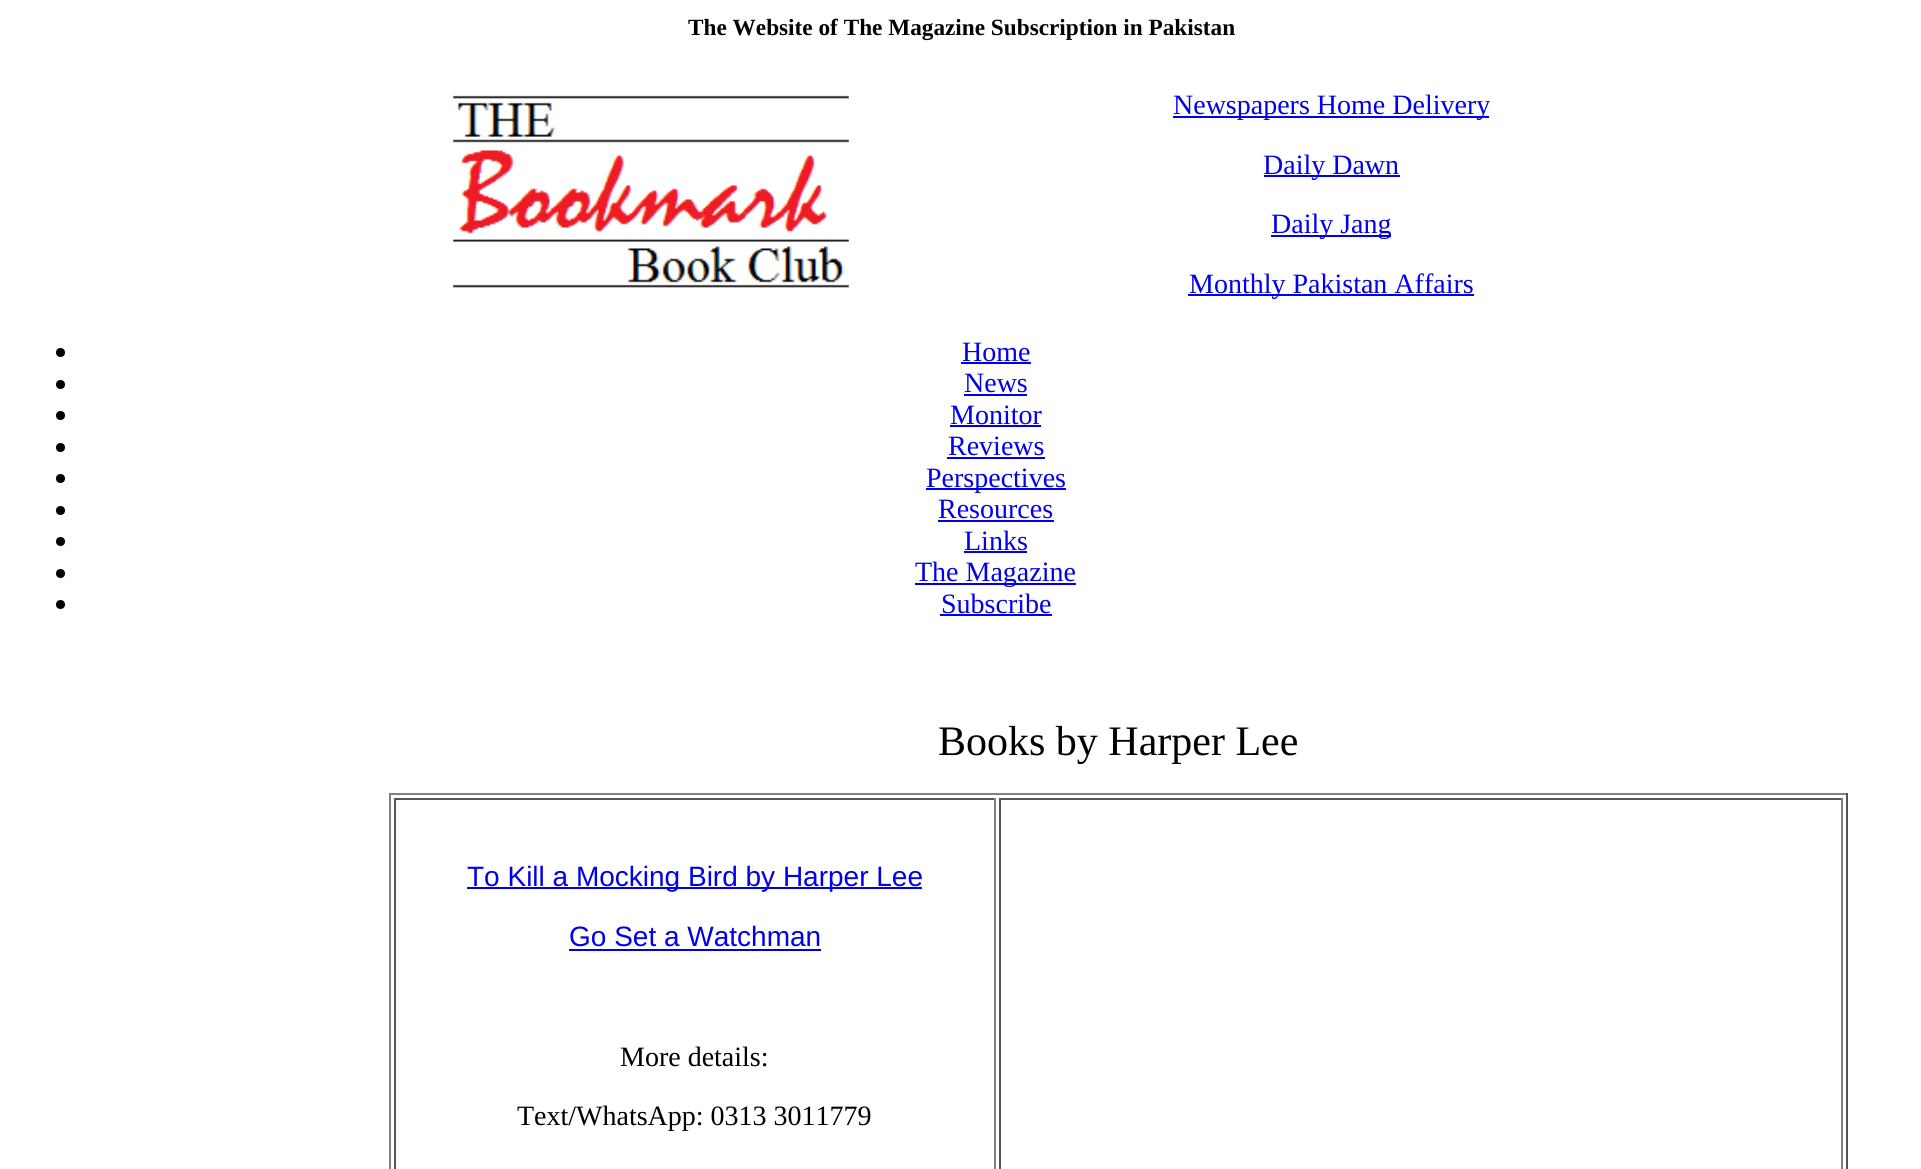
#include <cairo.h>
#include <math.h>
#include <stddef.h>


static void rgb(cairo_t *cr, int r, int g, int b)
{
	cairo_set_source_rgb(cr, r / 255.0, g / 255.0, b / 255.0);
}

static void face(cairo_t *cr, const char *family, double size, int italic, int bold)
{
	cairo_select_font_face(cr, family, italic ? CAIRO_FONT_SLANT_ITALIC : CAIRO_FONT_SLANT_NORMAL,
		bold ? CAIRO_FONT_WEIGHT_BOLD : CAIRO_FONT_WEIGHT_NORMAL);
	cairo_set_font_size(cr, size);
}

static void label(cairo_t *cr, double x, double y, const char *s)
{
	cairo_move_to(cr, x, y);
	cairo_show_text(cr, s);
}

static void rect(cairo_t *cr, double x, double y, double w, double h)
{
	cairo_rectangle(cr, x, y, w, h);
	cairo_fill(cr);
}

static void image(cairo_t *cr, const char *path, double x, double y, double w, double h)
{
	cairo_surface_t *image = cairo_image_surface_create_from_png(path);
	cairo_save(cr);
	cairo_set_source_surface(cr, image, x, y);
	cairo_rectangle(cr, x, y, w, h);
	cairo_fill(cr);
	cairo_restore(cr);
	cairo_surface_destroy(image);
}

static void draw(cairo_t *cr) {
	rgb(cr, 255, 255, 255);
	cairo_paint(cr);
	face(cr, "Liberation Serif", 23.25, 0, 1);
	rgb(cr, 0, 0, 0);
	label(cr, 688, 35, "The Website of The Magazine Subscription in Pakistan");
	image(cr, "image0.png", 453, 95, 396, 193);
	rgb(cr, 0, 0, 238);
	rect(cr, 1173, 116, 316, 2);
	face(cr, "Liberation Serif", 28, 0, 0);
	label(cr, 1173, 114, "Newspapers Home Delivery");
	rect(cr, 1264, 175, 136, 2);
	label(cr, 1263, 174, "Daily Dawn");
	rect(cr, 1271, 235, 120, 2);
	label(cr, 1271, 233, "Daily Jang");
	rect(cr, 1188, 294, 286, 2);
	label(cr, 1189, 293, "Monthly Pakistan Affairs");
	rgb(cr, 0, 0, 0);
	cairo_new_path(cr);
	cairo_arc(cr, 60.5, 352.5, 4.5, 0, 2 * M_PI);
	cairo_fill(cr);
	rgb(cr, 0, 0, 238);
	label(cr, 962, 361, "Home");
	rect(cr, 961, 362, 70, 2);
	rgb(cr, 0, 0, 0);
	cairo_new_path(cr);
	cairo_arc(cr, 60.5, 384.5, 4.5, 0, 2 * M_PI);
	cairo_fill(cr);
	rgb(cr, 0, 0, 238);
	label(cr, 964, 392, "News");
	rect(cr, 964, 394, 63, 2);
	rgb(cr, 0, 0, 0);
	cairo_new_path(cr);
	cairo_arc(cr, 60.5, 415.5, 4.5, 0, 2 * M_PI);
	cairo_fill(cr);
	rgb(cr, 0, 0, 238);
	label(cr, 950, 424, "Monitor");
	rect(cr, 950, 425, 91, 2);
	rgb(cr, 0, 0, 0);
	cairo_new_path(cr);
	cairo_arc(cr, 60.5, 447.5, 4.5, 0, 2 * M_PI);
	cairo_fill(cr);
	rgb(cr, 0, 0, 238);
	label(cr, 948, 455, "Reviews");
	rect(cr, 947, 457, 98, 2);
	rgb(cr, 0, 0, 0);
	cairo_new_path(cr);
	cairo_arc(cr, 60.5, 478.5, 4.5, 0, 2 * M_PI);
	cairo_fill(cr);
	rgb(cr, 0, 0, 238);
	rect(cr, 926, 488, 140, 2);
	label(cr, 926, 487, "Perspectives");
	rgb(cr, 0, 0, 0);
	cairo_new_path(cr);
	cairo_arc(cr, 60.5, 510.5, 4.5, 0, 2 * M_PI);
	cairo_fill(cr);
	rgb(cr, 0, 0, 238);
	label(cr, 938, 518, "Resources");
	rect(cr, 938, 520, 116, 2);
	rgb(cr, 0, 0, 0);
	cairo_new_path(cr);
	cairo_arc(cr, 60.5, 541.5, 4.5, 0, 2 * M_PI);
	cairo_fill(cr);
	rgb(cr, 0, 0, 238);
	label(cr, 964, 550, "Links");
	rect(cr, 964, 551, 63, 2);
	rgb(cr, 0, 0, 0);
	cairo_new_path(cr);
	cairo_arc(cr, 60.5, 573.5, 4.5, 0, 2 * M_PI);
	cairo_fill(cr);
	rgb(cr, 0, 0, 238);
	rect(cr, 915, 583, 161, 2);
	label(cr, 915, 581, "The Magazine");
	rgb(cr, 0, 0, 0);
	cairo_new_path(cr);
	cairo_arc(cr, 60.5, 604.5, 4.5, 0, 2 * M_PI);
	cairo_fill(cr);
	rgb(cr, 0, 0, 238);
	label(cr, 941, 613, "Subscribe");
	rect(cr, 940, 614, 112, 2);
	face(cr, "Liberation Serif", 42, 0, 0);
	rgb(cr, 0, 0, 0);
	label(cr, 938, 755, "Books by Harper Lee");
	rgb(cr, 128, 128, 128);
	rect(cr, 389, 793, 1459, 2);
	rgb(cr, 85, 85, 85);
	rect(cr, 1846, 793, 2, 376);
	rgb(cr, 128, 128, 128);
	rect(cr, 389, 793, 2, 376);
	rgb(cr, 85, 85, 85);
	rect(cr, 394, 798, 602, 2);
	rgb(cr, 128, 128, 128);
	rect(cr, 994, 798, 2, 371);
	rgb(cr, 85, 85, 85);
	rect(cr, 394, 798, 2, 371);
	rgb(cr, 0, 0, 238);
	rect(cr, 467, 887, 455, 2);
	face(cr, "Liberation Sans", 28, 0, 0);
	label(cr, 467, 886, "To Kill a Mocking Bird by Harper Lee");
	label(cr, 569, 946, "Go Set a Watchman");
	rect(cr, 569, 949, 252, 2);
	face(cr, "Liberation Serif", 28, 0, 0);
	rgb(cr, 0, 0, 0);
	label(cr, 620, 1066, "More details:");
	label(cr, 517, 1125, "Text/WhatsApp: 0313 3011779");
	rgb(cr, 85, 85, 85);
	rect(cr, 999, 798, 844, 2);
	rgb(cr, 128, 128, 128);
	rect(cr, 1841, 798, 2, 371);
	rgb(cr, 85, 85, 85);
	rect(cr, 999, 798, 2, 371);
}

int main(void) {
	cairo_surface_t *surface = cairo_image_surface_create(CAIRO_FORMAT_RGB24, 1921, 1169);
	cairo_t *cr = cairo_create(surface);
	cairo_font_options_t *options = cairo_font_options_create();
	cairo_font_options_set_hint_metrics(options, CAIRO_HINT_METRICS_OFF);
	cairo_font_options_set_hint_style(options, CAIRO_HINT_STYLE_NONE);
	cairo_set_font_options(cr, options);
	cairo_set_miter_limit(cr, 4);
	draw(cr);
	cairo_surface_write_to_png(surface, "render.png");
	cairo_font_options_destroy(options);
	cairo_destroy(cr);
	cairo_surface_destroy(surface);
	return 0;
}
